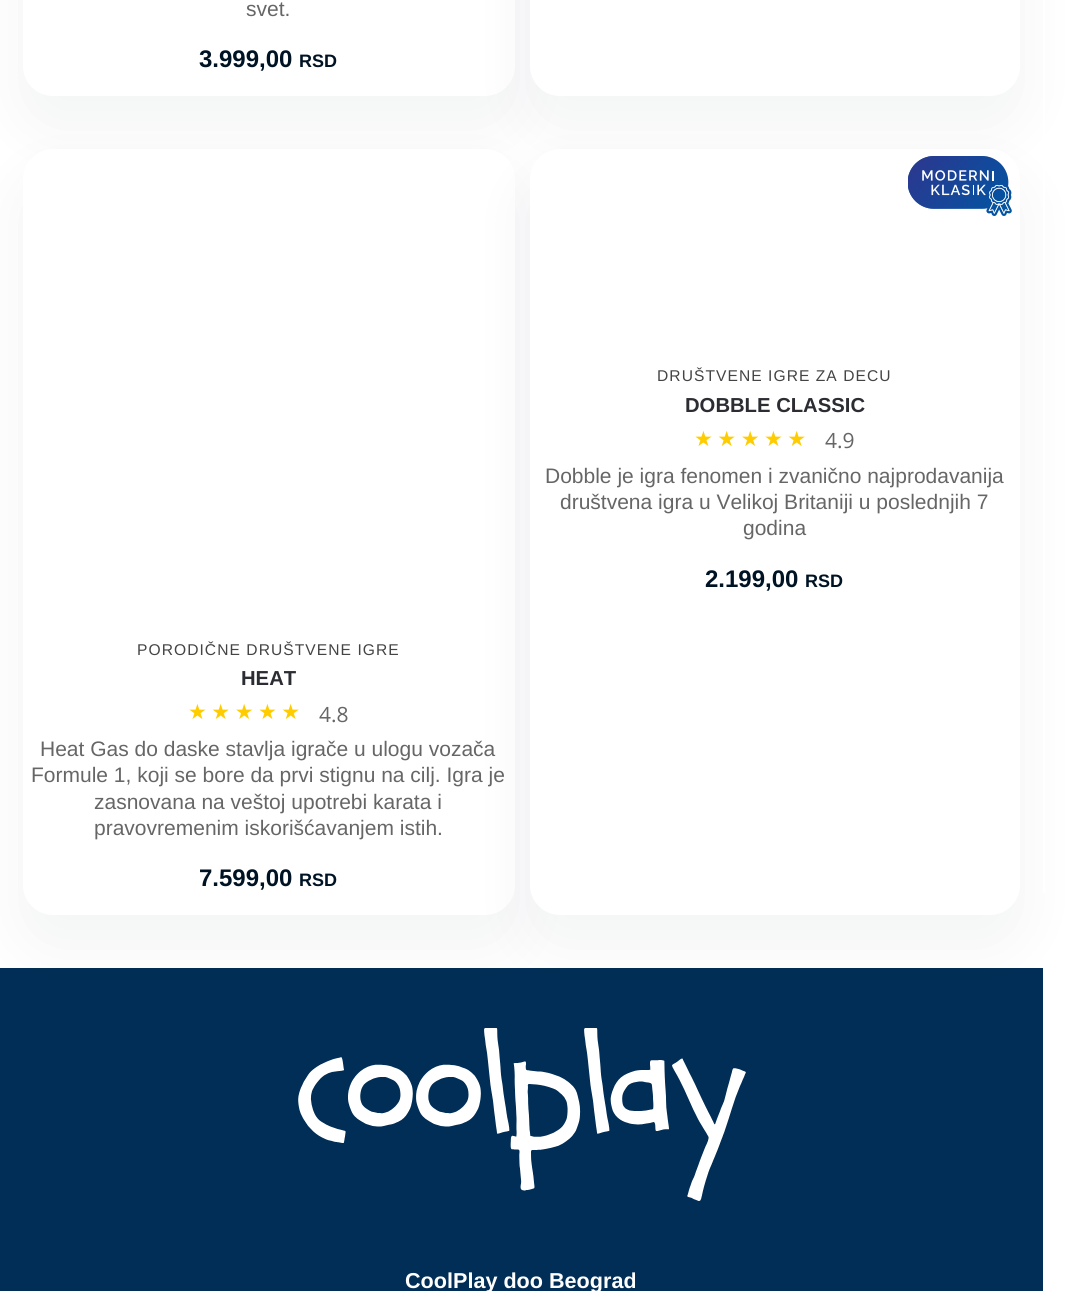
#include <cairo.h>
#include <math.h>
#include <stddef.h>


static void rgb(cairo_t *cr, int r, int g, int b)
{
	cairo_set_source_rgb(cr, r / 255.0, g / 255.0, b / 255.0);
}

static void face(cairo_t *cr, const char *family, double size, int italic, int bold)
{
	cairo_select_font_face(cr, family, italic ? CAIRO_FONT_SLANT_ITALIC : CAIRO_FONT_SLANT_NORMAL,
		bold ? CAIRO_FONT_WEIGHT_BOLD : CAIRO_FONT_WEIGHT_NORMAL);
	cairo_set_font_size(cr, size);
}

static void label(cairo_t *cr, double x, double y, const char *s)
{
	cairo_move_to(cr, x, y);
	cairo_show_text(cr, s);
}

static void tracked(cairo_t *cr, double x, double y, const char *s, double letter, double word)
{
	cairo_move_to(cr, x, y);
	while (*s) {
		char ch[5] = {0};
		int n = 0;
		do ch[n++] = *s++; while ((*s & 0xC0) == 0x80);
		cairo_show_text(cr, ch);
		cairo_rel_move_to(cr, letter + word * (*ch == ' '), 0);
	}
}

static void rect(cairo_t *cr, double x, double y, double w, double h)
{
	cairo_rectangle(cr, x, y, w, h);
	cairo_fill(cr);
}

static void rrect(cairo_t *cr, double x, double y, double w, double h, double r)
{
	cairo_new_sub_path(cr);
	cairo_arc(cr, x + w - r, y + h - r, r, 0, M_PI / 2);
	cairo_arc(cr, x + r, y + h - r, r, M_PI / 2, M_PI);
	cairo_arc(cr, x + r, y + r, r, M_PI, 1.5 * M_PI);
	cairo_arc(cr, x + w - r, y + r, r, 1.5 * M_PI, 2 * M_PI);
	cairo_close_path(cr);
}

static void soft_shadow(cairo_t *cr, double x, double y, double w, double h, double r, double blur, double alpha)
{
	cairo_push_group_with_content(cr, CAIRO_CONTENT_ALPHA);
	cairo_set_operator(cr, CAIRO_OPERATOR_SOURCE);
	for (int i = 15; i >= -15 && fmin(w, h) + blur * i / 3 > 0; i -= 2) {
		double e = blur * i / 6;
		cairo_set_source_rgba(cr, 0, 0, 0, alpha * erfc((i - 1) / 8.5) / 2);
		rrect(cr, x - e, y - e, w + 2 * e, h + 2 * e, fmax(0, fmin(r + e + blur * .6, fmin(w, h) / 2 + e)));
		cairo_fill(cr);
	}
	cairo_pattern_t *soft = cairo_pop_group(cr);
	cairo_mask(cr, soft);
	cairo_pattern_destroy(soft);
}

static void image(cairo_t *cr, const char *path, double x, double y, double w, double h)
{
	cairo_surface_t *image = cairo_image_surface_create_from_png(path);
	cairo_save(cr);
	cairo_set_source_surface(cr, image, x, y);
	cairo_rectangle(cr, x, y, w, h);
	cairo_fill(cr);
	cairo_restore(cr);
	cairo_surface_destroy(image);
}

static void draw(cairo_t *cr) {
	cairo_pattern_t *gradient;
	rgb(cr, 255, 255, 255);
	cairo_paint(cr);
	rgb(cr, 0, 19, 36);
	soft_shadow(cr, 23, -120, 492, 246, 30, 30, 0.05);
	rgb(cr, 255, 255, 255);
	rrect(cr, 23, -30, 492, 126, 30);
	cairo_fill(cr);
	face(cr, "Liberation Sans", 21, 0, 0);
	rgb(cr, 102, 102, 102);
	label(cr, 246, 16, "svet.");
	face(cr, "Liberation Sans", 24, 0, 1);
	rgb(cr, 0, 19, 36);
	label(cr, 199, 67, "3.999,00");
	face(cr, "Liberation Sans", 18, 0, 1);
	label(cr, 299, 67, "RSD");
	rgb(cr, 0, 19, 36);
	soft_shadow(cr, 530, -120, 490, 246, 30, 30, 0.05);
	rgb(cr, 255, 255, 255);
	rrect(cr, 530, -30, 490, 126, 30);
	cairo_fill(cr);
	rgb(cr, 1, 46, 86);
	rect(cr, 0, 968, 1043, 323);
	rgb(cr, 0, 19, 36);
	soft_shadow(cr, 23, 179, 492, 766, 30, 30, 0.05);
	rgb(cr, 255, 255, 255);
	rrect(cr, 23, 149, 492, 766, 30);
	cairo_fill(cr);
	rgb(cr, 0, 19, 36);
	soft_shadow(cr, 530, 179, 490, 766, 30, 30, 0.05);
	rgb(cr, 255, 255, 255);
	rrect(cr, 530, 149, 490, 766, 30);
	cairo_fill(cr);
	image(cr, "image0.png", 908, 156, 104, 60);
	face(cr, "Liberation Sans", 15.6, 0, 0);
	rgb(cr, 68, 68, 68);
	tracked(cr, 657, 381, "DRUŠTVENE IGRE ZA DECU", 1.05, 0);
	face(cr, "Liberation Sans", 20.25, 0, 1);
	rgb(cr, 44, 45, 51);
	label(cr, 685, 412, "DOBBLE CLASSIC");
	face(cr, "DejaVu Sans", 21, 0, 0);
	gradient = cairo_pattern_create_linear(694, 440, 810, 440);
	cairo_pattern_add_color_stop_rgba(gradient, 0.98, 1, 0.8, 0, 1);
	cairo_pattern_add_color_stop_rgba(gradient, 0.98, 1, 1, 1, 1);
	cairo_set_source(cr, gradient);
	cairo_pattern_destroy(gradient);
	tracked(cr, 694, 446, "★★★★★", 4.5, 0);
	face(cr, "Open Sans", 21, 0, 0);
	rgb(cr, 102, 102, 102);
	label(cr, 825, 448, "4.9");
	face(cr, "Liberation Sans", 21, 0, 0);
	label(cr, 545, 483, "Dobble je igra fenomen i zvanično najprodavanija");
	label(cr, 560, 509, "društvena igra u Velikoj Britaniji u poslednjih 7");
	label(cr, 743, 535, "godina");
	face(cr, "Liberation Sans", 24, 0, 1);
	rgb(cr, 0, 19, 36);
	label(cr, 705, 587, "2.199,00");
	face(cr, "Liberation Sans", 18, 0, 1);
	label(cr, 805, 587, "RSD");
	face(cr, "Liberation Sans", 15.6, 0, 0);
	rgb(cr, 68, 68, 68);
	tracked(cr, 137, 655, "PORODIČNE DRUŠTVENE IGRE", 1.05, 0);
	face(cr, "Liberation Sans", 20.25, 0, 1);
	rgb(cr, 44, 45, 51);
	label(cr, 241, 685, "HEAT");
	face(cr, "DejaVu Sans", 21, 0, 0);
	gradient = cairo_pattern_create_linear(188, 713, 304, 713);
	cairo_pattern_add_color_stop_rgba(gradient, 0.96, 1, 0.8, 0, 1);
	cairo_pattern_add_color_stop_rgba(gradient, 0.96, 1, 1, 1, 1);
	cairo_set_source(cr, gradient);
	cairo_pattern_destroy(gradient);
	tracked(cr, 188, 719, "★★★★★", 4.5, 0);
	face(cr, "Open Sans", 21, 0, 0);
	rgb(cr, 102, 102, 102);
	label(cr, 319, 722, "4.8");
	face(cr, "Liberation Sans", 21, 0, 0);
	label(cr, 40, 756, "Heat Gas do daske stavlja igrače u ulogu vozača");
	label(cr, 31, 782, "Formule 1, koji se bore da prvi stignu na cilj. Igra je");
	label(cr, 94, 809, "zasnovana na veštoj upotrebi karata i");
	label(cr, 94, 835, "pravovremenim iskorišćavanjem istih.");
	face(cr, "Liberation Sans", 24, 0, 1);
	rgb(cr, 0, 19, 36);
	label(cr, 199, 886, "7.599,00");
	face(cr, "Liberation Sans", 18, 0, 1);
	label(cr, 299, 886, "RSD");
	rgb(cr, 255, 255, 255);
	rect(cr, 1043, 0, 2, 893);
	image(cr, "image1.png", 298, 1028, 448, 173);
	face(cr, "Liberation Sans", 21.6, 0, 1);
	label(cr, 405, 1288, "CoolPlay doo Beograd");
}

int main(void) {
	cairo_surface_t *surface = cairo_image_surface_create(CAIRO_FORMAT_RGB24, 1065, 1291);
	cairo_t *cr = cairo_create(surface);
	cairo_font_options_t *options = cairo_font_options_create();
	cairo_font_options_set_hint_metrics(options, CAIRO_HINT_METRICS_OFF);
	cairo_font_options_set_hint_style(options, CAIRO_HINT_STYLE_NONE);
	cairo_set_font_options(cr, options);
	cairo_set_miter_limit(cr, 4);
	draw(cr);
	cairo_surface_write_to_png(surface, "render.png");
	cairo_font_options_destroy(options);
	cairo_destroy(cr);
	cairo_surface_destroy(surface);
	return 0;
}
